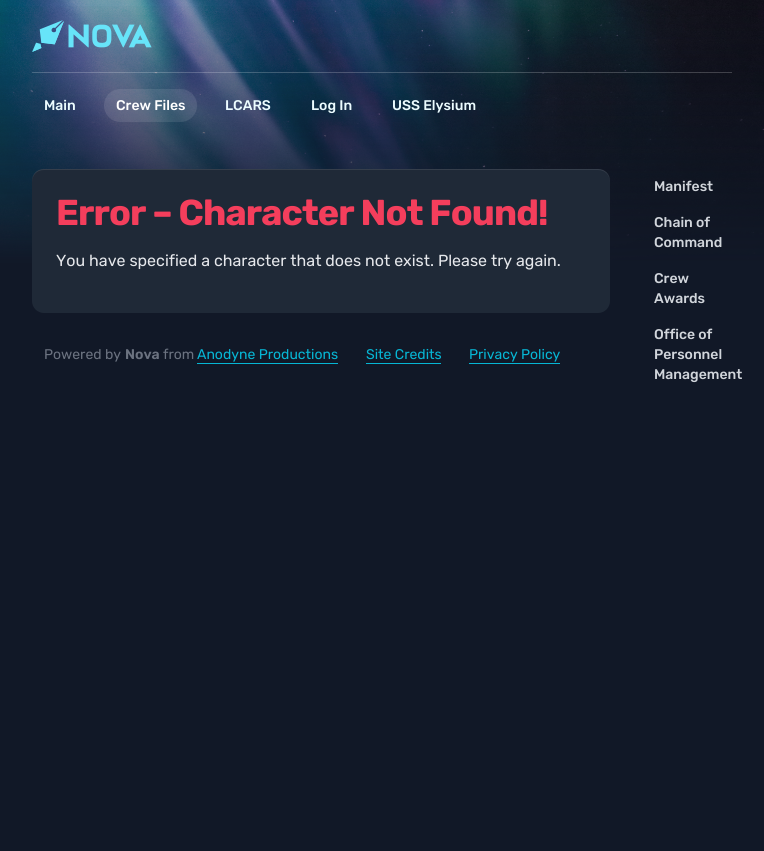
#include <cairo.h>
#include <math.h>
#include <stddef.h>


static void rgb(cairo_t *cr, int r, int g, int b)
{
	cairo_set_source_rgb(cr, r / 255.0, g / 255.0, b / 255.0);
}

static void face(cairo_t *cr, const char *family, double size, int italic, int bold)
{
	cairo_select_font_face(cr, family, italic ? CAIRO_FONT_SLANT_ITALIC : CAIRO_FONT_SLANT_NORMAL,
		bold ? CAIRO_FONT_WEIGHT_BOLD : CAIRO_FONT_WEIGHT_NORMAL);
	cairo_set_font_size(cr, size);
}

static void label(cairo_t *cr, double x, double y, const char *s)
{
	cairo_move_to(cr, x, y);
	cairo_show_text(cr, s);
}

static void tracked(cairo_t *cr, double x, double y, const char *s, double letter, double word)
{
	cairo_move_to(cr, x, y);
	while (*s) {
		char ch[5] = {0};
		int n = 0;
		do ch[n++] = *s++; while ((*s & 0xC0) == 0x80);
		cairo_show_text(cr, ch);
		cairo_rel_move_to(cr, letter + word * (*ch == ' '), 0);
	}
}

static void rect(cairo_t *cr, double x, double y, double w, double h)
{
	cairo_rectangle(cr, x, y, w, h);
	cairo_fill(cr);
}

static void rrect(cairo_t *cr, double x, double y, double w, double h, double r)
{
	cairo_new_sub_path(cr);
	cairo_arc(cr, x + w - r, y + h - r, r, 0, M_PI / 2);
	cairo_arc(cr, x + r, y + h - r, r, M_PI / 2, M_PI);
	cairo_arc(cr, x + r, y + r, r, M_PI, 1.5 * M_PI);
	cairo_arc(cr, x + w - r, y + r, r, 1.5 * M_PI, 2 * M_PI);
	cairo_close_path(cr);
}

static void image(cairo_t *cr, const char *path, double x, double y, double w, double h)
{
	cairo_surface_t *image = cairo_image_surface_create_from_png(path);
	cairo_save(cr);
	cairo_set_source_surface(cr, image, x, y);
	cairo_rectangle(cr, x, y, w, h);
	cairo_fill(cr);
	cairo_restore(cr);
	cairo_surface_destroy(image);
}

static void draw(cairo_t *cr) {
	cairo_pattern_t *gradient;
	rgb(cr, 17, 24, 39);
	cairo_paint(cr);
	image(cr, "image0.png", 0, 0, 764, 263);
	gradient = cairo_pattern_create_linear(382, 0, 382, 265);
	cairo_pattern_add_color_stop_rgba(gradient, 0, 0.067, 0.094, 0.153, 0);
	cairo_pattern_add_color_stop_rgba(gradient, 1, 0.067, 0.094, 0.153, 1);
	cairo_set_source(cr, gradient);
	cairo_pattern_destroy(gradient);
	rect(cr, 0, 6, 764, 257);
	image(cr, "image1.png", 32, 20, 120, 32);
	cairo_set_source_rgba(cr, 1, 1, 1, 0.2);
	rect(cr, 32, 72, 700, 1);
	face(cr, "Rubik Medium", 14, 0, 0);
	rgb(cr, 236, 252, 255);
	label(cr, 44, 110, "Main");
	cairo_set_source_rgba(cr, 1, 1, 1, 0.1);
	rrect(cr, 104, 89, 93, 33, 16.5);
	cairo_fill(cr);
	rgb(cr, 255, 255, 255);
	label(cr, 116, 110, "Crew Files");
	rgb(cr, 236, 252, 255);
	label(cr, 225, 110, "LCARS");
	label(cr, 311, 110, "Log In");
	label(cr, 392, 110, "USS Elysium");
	rgb(cr, 31, 41, 55);
	rrect(cr, 32, 169, 578, 144, 12);
	cairo_fill(cr);
	cairo_set_source_rgba(cr, 1, 1, 1, 0.1);
	cairo_new_path(cr);
	cairo_move_to(cr, 44, 170);
	cairo_line_to(cr, 598, 170);
	cairo_curve_to(cr, 605, 170, 610, 175, 610, 182);
	cairo_line_to(cr, 610, 181);
	cairo_curve_to(cr, 610, 174, 605, 169, 598, 169);
	cairo_line_to(cr, 44, 169);
	cairo_curve_to(cr, 37, 169, 32, 174, 32, 181);
	cairo_line_to(cr, 32, 182);
	cairo_curve_to(cr, 32, 175, 37, 170, 44, 170);
	cairo_close_path(cr);
	cairo_fill(cr);
	face(cr, "Rubik", 36, 0, 1);
	rgb(cr, 244, 62, 92);
	tracked(cr, 56, 225, "Error – Character Not Found!", -0.9, 0);
	face(cr, "Rubik", 16, 0, 0);
	rgb(cr, 229, 231, 235);
	label(cr, 56, 266, "You have specified a character that does not exist. Please try again.");
	face(cr, "Rubik", 14, 0, 0);
	rgb(cr, 107, 114, 128);
	label(cr, 44, 359, "Powered by");
	face(cr, "Rubik SemiBold", 14, 0, 0);
	label(cr, 125, 359, "Nova");
	face(cr, "Rubik", 14, 0, 0);
	label(cr, 163, 359, "from");
	rgb(cr, 6, 182, 212);
	label(cr, 197, 359, "Anodyne Productions");
	rect(cr, 197, 363, 141, 1);
	label(cr, 366, 359, "Site Credits");
	rect(cr, 366, 363, 75, 1);
	label(cr, 469, 359, "Privacy Policy");
	rect(cr, 469, 363, 91, 1);
	face(cr, "Rubik Medium", 14, 0, 0);
	rgb(cr, 209, 213, 219);
	label(cr, 654, 191, "Manifest");
	label(cr, 654, 227, "Chain of");
	label(cr, 654, 247, "Command");
	label(cr, 654, 283, "Crew");
	label(cr, 654, 303, "Awards");
	label(cr, 654, 339, "Office of");
	label(cr, 654, 359, "Personnel");
	label(cr, 654, 379, "Management");
}

int main(void) {
	cairo_surface_t *surface = cairo_image_surface_create(CAIRO_FORMAT_RGB24, 764, 851);
	cairo_t *cr = cairo_create(surface);
	cairo_font_options_t *options = cairo_font_options_create();
	cairo_font_options_set_hint_metrics(options, CAIRO_HINT_METRICS_OFF);
	cairo_font_options_set_hint_style(options, CAIRO_HINT_STYLE_NONE);
	cairo_set_font_options(cr, options);
	cairo_set_miter_limit(cr, 4);
	draw(cr);
	cairo_surface_write_to_png(surface, "render.png");
	cairo_font_options_destroy(options);
	cairo_destroy(cr);
	cairo_surface_destroy(surface);
	return 0;
}
